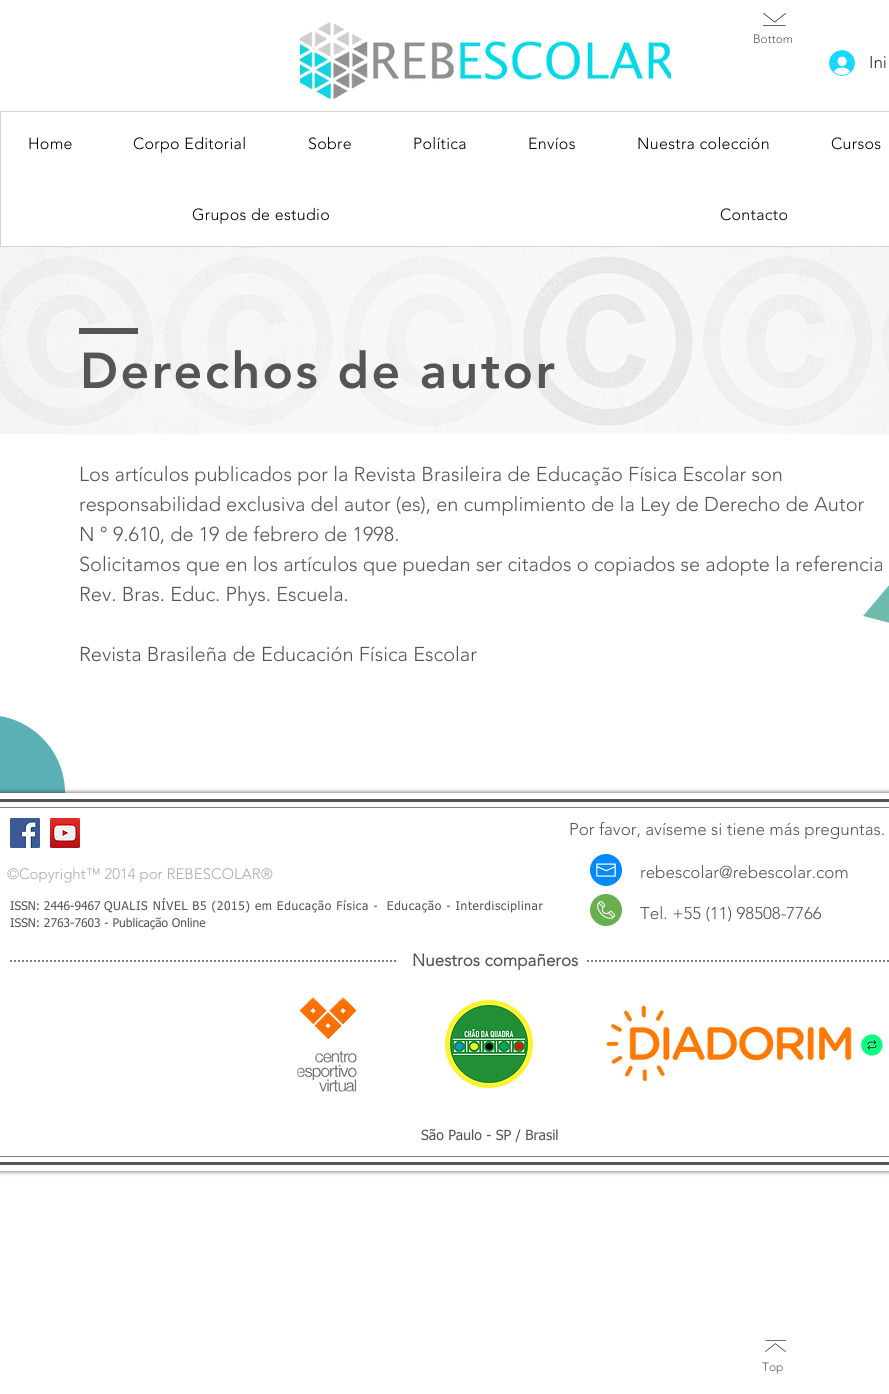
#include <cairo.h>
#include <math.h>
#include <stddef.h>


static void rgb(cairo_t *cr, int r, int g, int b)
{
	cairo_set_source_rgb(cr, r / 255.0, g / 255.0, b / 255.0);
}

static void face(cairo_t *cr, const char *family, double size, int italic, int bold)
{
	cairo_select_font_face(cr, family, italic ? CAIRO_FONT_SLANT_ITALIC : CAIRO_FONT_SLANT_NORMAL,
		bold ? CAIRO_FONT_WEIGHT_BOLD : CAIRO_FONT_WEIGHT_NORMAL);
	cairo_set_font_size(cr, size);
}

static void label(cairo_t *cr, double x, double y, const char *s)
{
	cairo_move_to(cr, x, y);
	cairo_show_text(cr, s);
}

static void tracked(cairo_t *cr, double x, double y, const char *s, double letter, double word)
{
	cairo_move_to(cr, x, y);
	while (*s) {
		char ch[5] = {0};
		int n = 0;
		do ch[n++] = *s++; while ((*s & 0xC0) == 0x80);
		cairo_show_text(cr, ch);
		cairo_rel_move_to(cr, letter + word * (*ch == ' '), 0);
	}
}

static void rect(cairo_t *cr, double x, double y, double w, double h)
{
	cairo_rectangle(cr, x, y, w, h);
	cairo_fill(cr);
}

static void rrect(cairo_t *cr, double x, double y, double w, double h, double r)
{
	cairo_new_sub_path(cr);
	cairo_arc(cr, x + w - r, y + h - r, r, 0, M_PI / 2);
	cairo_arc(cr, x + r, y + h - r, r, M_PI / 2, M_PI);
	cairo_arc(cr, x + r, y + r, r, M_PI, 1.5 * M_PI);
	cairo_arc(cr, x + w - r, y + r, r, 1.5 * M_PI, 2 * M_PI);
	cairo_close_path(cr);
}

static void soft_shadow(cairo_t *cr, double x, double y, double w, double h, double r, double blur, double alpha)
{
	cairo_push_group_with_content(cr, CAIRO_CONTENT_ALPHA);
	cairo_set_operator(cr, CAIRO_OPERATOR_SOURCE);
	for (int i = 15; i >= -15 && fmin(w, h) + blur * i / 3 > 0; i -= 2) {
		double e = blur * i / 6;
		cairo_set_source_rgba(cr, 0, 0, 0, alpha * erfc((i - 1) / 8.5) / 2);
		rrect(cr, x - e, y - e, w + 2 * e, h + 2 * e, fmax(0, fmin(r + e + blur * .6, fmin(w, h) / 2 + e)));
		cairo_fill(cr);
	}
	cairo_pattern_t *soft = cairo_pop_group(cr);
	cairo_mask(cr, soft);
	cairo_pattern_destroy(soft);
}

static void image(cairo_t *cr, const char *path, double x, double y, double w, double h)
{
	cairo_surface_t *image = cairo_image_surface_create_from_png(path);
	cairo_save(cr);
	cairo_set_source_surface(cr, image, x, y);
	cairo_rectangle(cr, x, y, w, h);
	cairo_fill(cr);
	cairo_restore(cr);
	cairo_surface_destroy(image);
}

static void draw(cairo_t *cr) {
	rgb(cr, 255, 255, 255);
	cairo_paint(cr);
	image(cr, "image0.png", 763, 13, 23, 13);
	face(cr, "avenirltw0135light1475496 Light", 12, 0, 0);
	rgb(cr, 85, 85, 85);
	label(cr, 753, 43, "Bottom");
	image(cr, "image1.png", 300, 21, 371, 78);
	image(cr, "image2.png", 829, 50, 26, 26);
	face(cr, "avenirltw0135light1475496 Light", 17, 0, 0);
	rgb(cr, 47, 46, 46);
	label(cr, 869, 68, "Ini");
	cairo_rectangle(cr, 0.5, 111.5, 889, 135);
	rgb(cr, 213, 213, 213);
	cairo_set_line_width(cr, 1);
	cairo_stroke(cr);
	face(cr, "avenirltw0135light1475496 Light", 16, 0, 0);
	rgb(cr, 0, 0, 0);
	tracked(cr, 28, 149, "Home", 0.3, 0);
	tracked(cr, 133, 149, "Corpo Editorial", 0.3, 0);
	tracked(cr, 308, 149, "Sobre", 0.3, 0);
	tracked(cr, 413, 149, "Política", 0.3, 0);
	tracked(cr, 528, 149, "Envíos", 0.3, 0);
	tracked(cr, 637, 149, "Nuestra colección", 0.3, 0);
	tracked(cr, 831, 149, "Cursos", 0.3, 0);
	tracked(cr, 192, 220, "Grupos de estudio", 0.3, 0);
	tracked(cr, 720, 220, "Contacto", 0.3, 0);
	image(cr, "image3.png", 0, 247, 889, 187);
	rgb(cr, 85, 85, 85);
	rect(cr, 79, 328, 59, 6);
	face(cr, "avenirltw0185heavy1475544 Black", 50, 0, 0);
	tracked(cr, 80, 388, "Derechos de autor", 2.5, 0);
	face(cr, "avenirltw0135light1475496 Light", 20, 0, 0);
	label(cr, 79, 481, "Los artículos publicados por la Revista Brasileira de Educação Física Escolar son");
	label(cr, 79, 511, "responsabilidad exclusiva del autor (es), en cumplimiento de la Ley de Derecho de Autor");
	label(cr, 79, 541, "N ° 9.610, de 19 de febrero de 1998.");
	label(cr, 79, 571, "Solicitamos que en los artículos que puedan ser citados o copiados se adopte la referencia");
	label(cr, 79, 601, "Rev. Bras. Educ. Phys. Escuela.");
	label(cr, 79, 661, "Revista Brasileña de Educación Física Escolar");
	rgb(cr, 109, 187, 173);
	cairo_new_path(cr);
	cairo_move_to(cr, 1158, 692);
	cairo_line_to(cr, 863, 616);
	cairo_line_to(cr, 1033, 415);
	cairo_close_path(cr);
	cairo_fill(cr);
	rgb(cr, 90, 176, 180);
	cairo_new_path(cr);
	cairo_move_to(cr, -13, 715);
	cairo_curve_to(cr, -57, 715, -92, 750, -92, 793);
	cairo_line_to(cr, 65, 793);
	cairo_curve_to(cr, 65, 750, 30, 715, -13, 715);
	cairo_close_path(cr);
	cairo_fill(cr);
	cairo_save(cr);
	cairo_set_fill_rule(cr, CAIRO_FILL_RULE_EVEN_ODD);
	cairo_new_path(cr);
	cairo_move_to(cr, 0, 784);
	cairo_line_to(cr, 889, 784);
	cairo_line_to(cr, 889, 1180);
	cairo_line_to(cr, 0, 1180);
	cairo_close_path(cr);
	cairo_move_to(cr, 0, 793);
	cairo_line_to(cr, 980, 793);
	cairo_line_to(cr, 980, 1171);
	cairo_line_to(cr, 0, 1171);
	cairo_close_path(cr);
	cairo_clip(cr);
	rgb(cr, 0, 0, 0);
	soft_shadow(cr, 0, 793, 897, 378, 0, 2.5, 0.7);
	cairo_restore(cr);
	rgb(cr, 85, 85, 85);
	rect(cr, 0, 799, 889, 3);
	rect(cr, 0, 1162, 889, 3);
	rgb(cr, 128, 128, 128);
	rect(cr, 0, 807, 889, 1);
	rect(cr, 0, 1156, 889, 1);
	image(cr, "image4.png", 10, 818, 30, 30);
	image(cr, "image5.png", 50, 818, 30, 30);
	face(cr, "avenirltw0135light1475496 Light", 17, 0, 0);
	rgb(cr, 85, 85, 85);
	label(cr, 569, 835, "Por favor, avíseme si tiene más preguntas.");
	face(cr, "avenirltw0135light1475496 Light", 15, 0, 0);
	rgb(cr, 170, 170, 170);
	label(cr, 7, 879, "©Copyright™ 2014 por REBESCOLAR®");
	image(cr, "image6.png", 590, 854, 32, 32);
	face(cr, "avenirltw0135light1475496 Light", 17, 0, 0);
	rgb(cr, 85, 85, 85);
	label(cr, 640, 878, "rebescolar@rebescolar.com");
	label(cr, 640, 919, "Tel. +55 (11) 98508-7766");
	face(cr, "tahoma", 12, 0, 0);
	label(cr, 10, 910, "ISSN: 2446-9467");
	tracked(cr, 104, 910, "QUALIS NÍVEL B5 (2015) em Educação Física -  Educação - Interdisciplinar", 0.6, 0);
	image(cr, "image7.png", 590, 894, 32, 32);
	label(cr, 10, 927, "ISSN: 2763-7603 - Publicação Online");
	cairo_new_path(cr);
	cairo_move_to(cr, 10, 961);
	cairo_line_to(cr, 396, 961);
	rgb(cr, 128, 128, 128);
	cairo_set_line_width(cr, 2);
	cairo_set_dash(cr, (double[]){2, 2}, 2, 0);
	cairo_stroke(cr);
	face(cr, "avenirltw0135light1475496", 17, 0, 1);
	rgb(cr, 85, 85, 85);
	label(cr, 412, 966, "Nuestros compañeros");
	cairo_new_path(cr);
	cairo_move_to(cr, 587, 961);
	cairo_line_to(cr, 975, 961);
	rgb(cr, 128, 128, 128);
	cairo_stroke(cr);
	image(cr, "image8.png", 297, 997, 60, 95);
	image(cr, "image9.png", 445, 1000, 89, 89);
	image(cr, "image10.png", 606, 1005, 277, 77);
	face(cr, "tahoma", 14, 0, 0);
	rgb(cr, 85, 85, 85);
	label(cr, 421, 1140, "São Paulo - SP / Brasil");
	image(cr, "image11.png", 765, 1340, 21, 12);
	face(cr, "avenirltw0135light1475496 Light", 12, 0, 0);
	label(cr, 762, 1371, "Top");
}

int main(void) {
	cairo_surface_t *surface = cairo_image_surface_create(CAIRO_FORMAT_RGB24, 889, 1394);
	cairo_t *cr = cairo_create(surface);
	cairo_font_options_t *options = cairo_font_options_create();
	cairo_font_options_set_hint_metrics(options, CAIRO_HINT_METRICS_OFF);
	cairo_font_options_set_hint_style(options, CAIRO_HINT_STYLE_NONE);
	cairo_set_font_options(cr, options);
	cairo_set_miter_limit(cr, 4);
	draw(cr);
	cairo_surface_write_to_png(surface, "render.png");
	cairo_font_options_destroy(options);
	cairo_destroy(cr);
	cairo_surface_destroy(surface);
	return 0;
}
